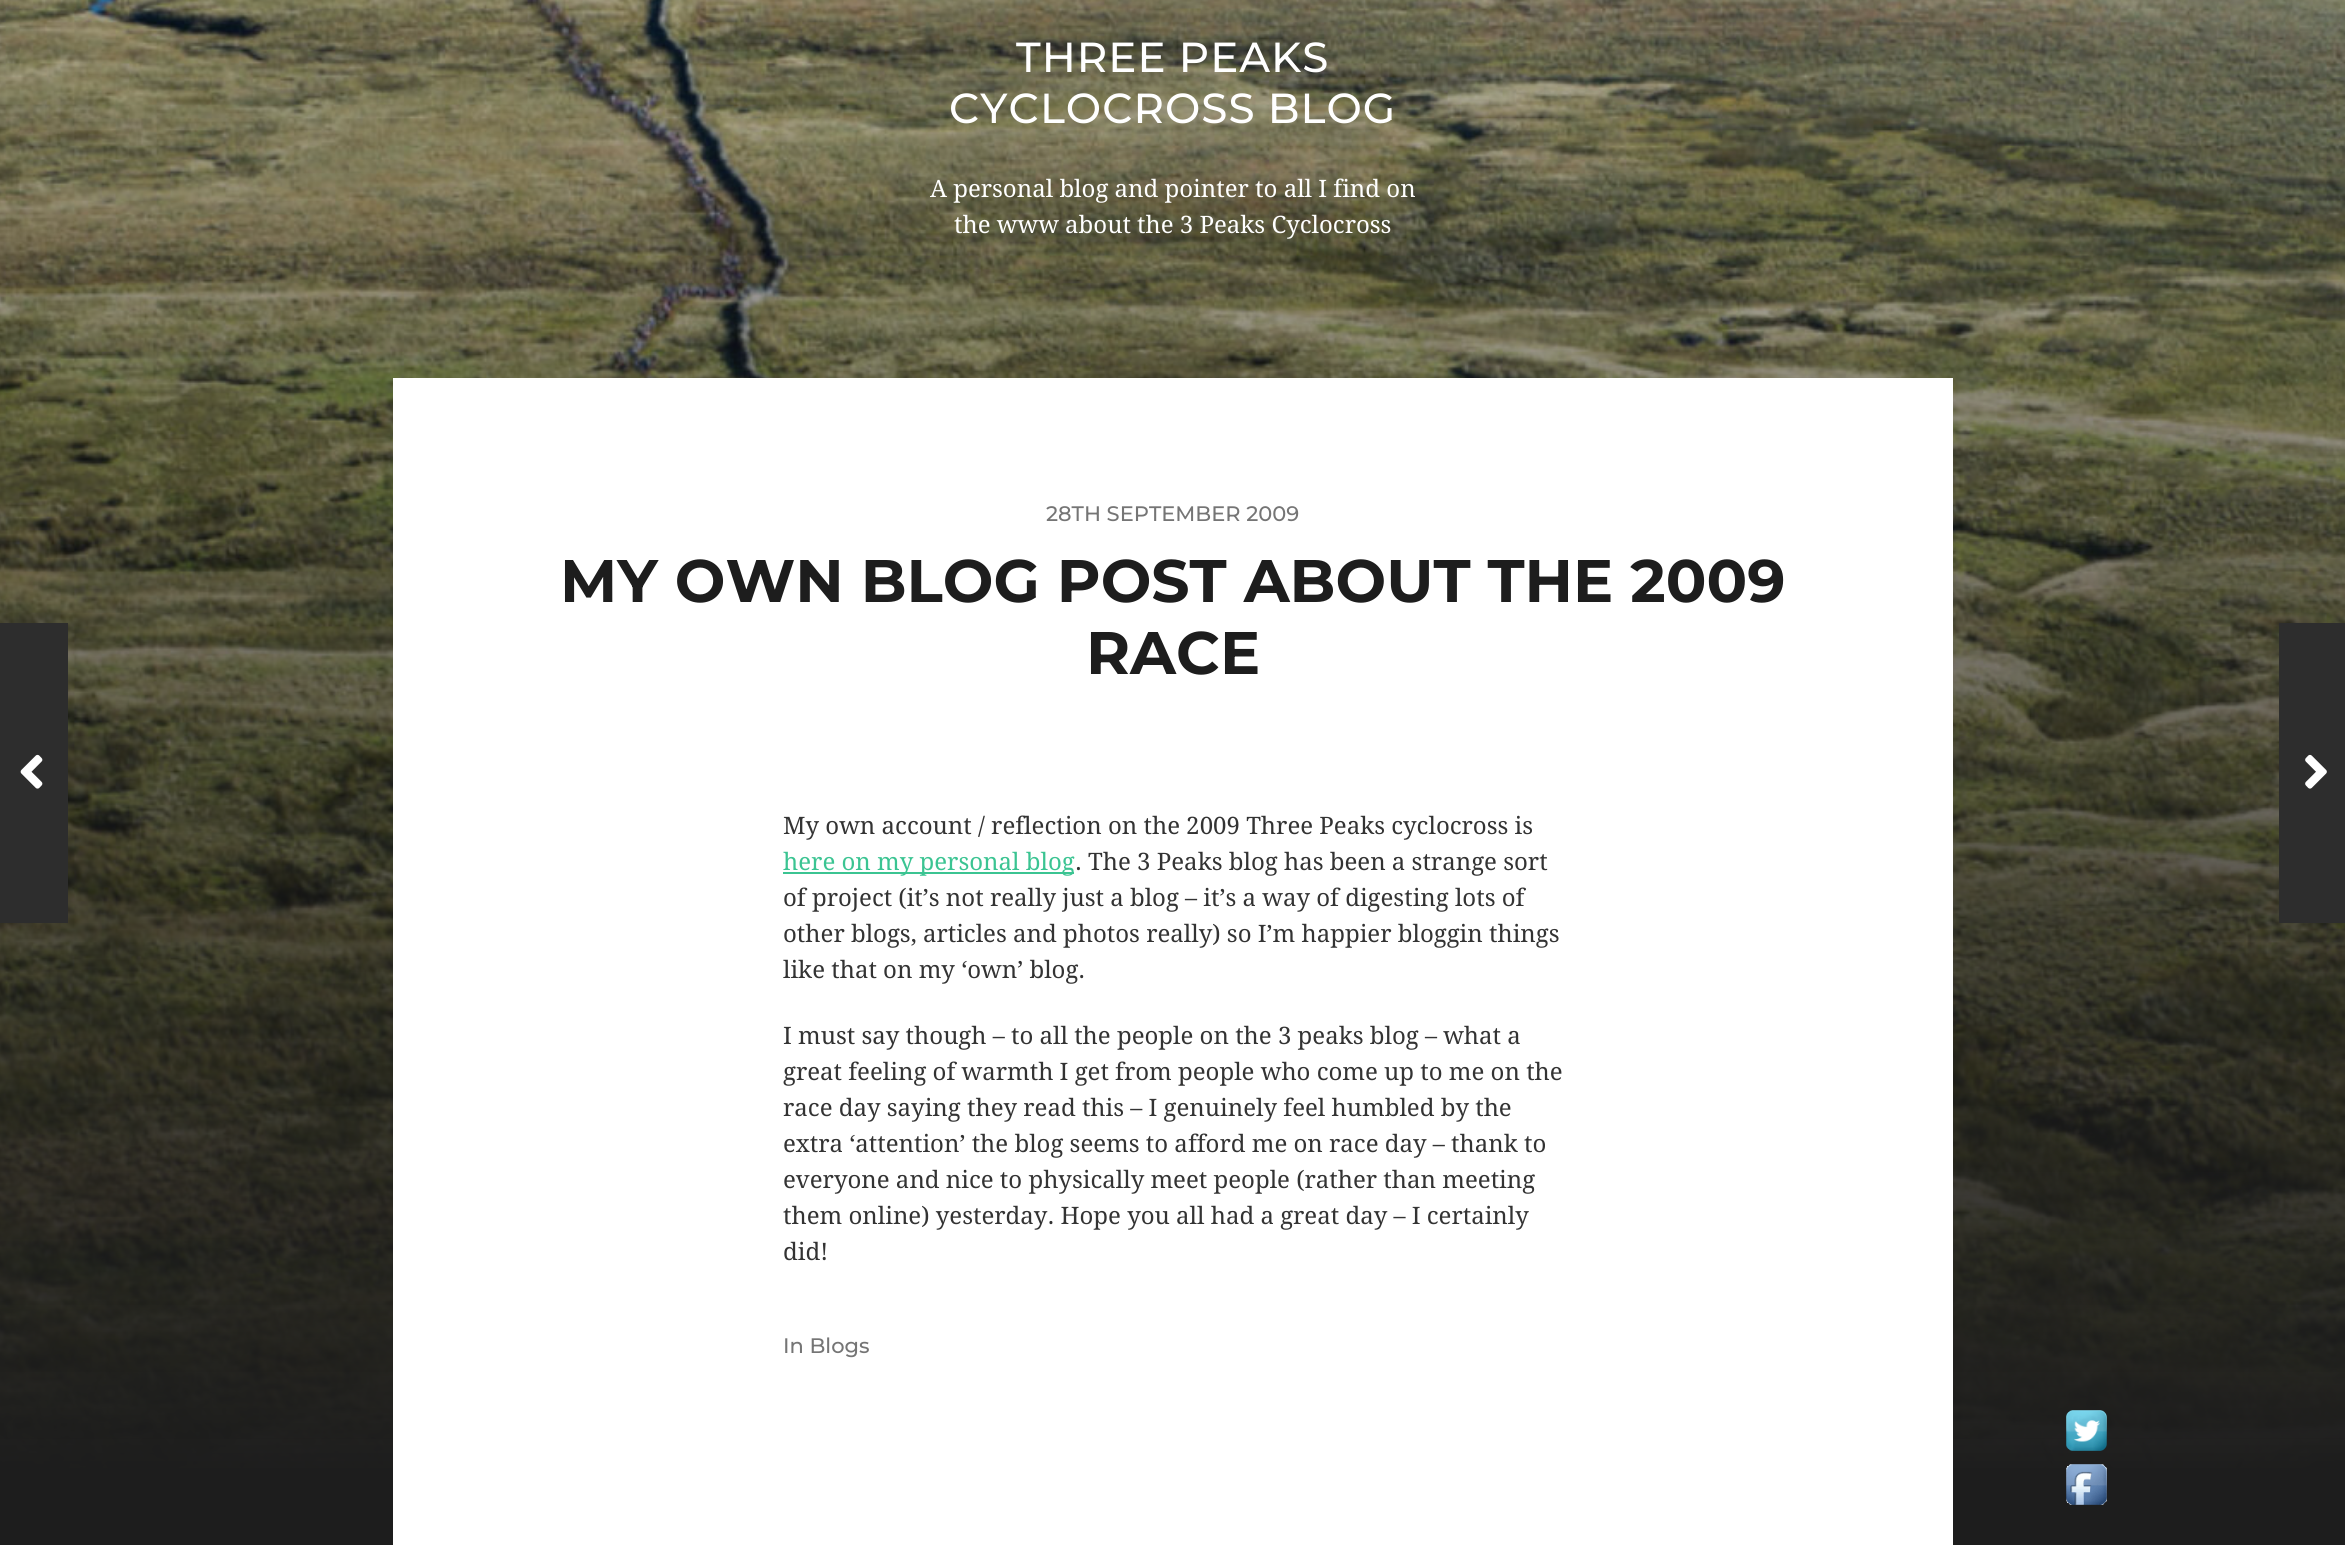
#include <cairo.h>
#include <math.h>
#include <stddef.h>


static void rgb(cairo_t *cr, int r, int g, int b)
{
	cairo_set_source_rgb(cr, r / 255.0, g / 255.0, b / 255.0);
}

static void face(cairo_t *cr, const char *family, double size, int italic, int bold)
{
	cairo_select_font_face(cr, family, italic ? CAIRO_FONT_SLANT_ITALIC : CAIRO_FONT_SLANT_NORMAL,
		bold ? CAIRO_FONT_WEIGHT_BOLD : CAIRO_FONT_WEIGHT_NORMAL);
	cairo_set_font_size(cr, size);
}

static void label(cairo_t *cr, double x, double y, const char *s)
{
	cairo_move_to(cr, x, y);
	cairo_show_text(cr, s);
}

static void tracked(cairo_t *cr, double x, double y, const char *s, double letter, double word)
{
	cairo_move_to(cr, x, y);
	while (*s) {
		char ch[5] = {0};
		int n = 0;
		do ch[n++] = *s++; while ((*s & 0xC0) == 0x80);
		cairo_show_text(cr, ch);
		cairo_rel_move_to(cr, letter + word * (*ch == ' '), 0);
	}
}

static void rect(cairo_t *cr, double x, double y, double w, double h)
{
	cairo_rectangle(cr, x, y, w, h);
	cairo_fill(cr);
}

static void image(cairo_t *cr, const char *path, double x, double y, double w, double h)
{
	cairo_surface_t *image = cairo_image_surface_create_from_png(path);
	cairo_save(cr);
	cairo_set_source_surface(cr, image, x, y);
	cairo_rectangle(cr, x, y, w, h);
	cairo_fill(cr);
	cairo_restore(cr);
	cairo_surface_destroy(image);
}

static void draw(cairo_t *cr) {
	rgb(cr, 29, 29, 29);
	cairo_paint(cr);
	image(cr, "image0.png", 0, 0, 2345, 1471);
	face(cr, "Montserrat Thin", 42, 0, 0);
	rgb(cr, 255, 255, 255);
	tracked(cr, 1016, 72, "THREE PEAKS", 1, 0);
	tracked(cr, 949, 123, "CYCLOCROSS BLOG", 1, 0);
	face(cr, "Droid Serif", 24, 0, 0);
	label(cr, 930, 197, "A personal blog and pointer to all I find on");
	label(cr, 954, 233, "the www about the 3 Peaks Cyclocross");
	rect(cr, 393, 378, 1560, 1167);
	face(cr, "Montserrat Thin", 21, 0, 0);
	rgb(cr, 117, 117, 117);
	label(cr, 1046, 521, "28TH SEPTEMBER 2009");
	face(cr, "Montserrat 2 Thin", 60, 0, 0);
	rgb(cr, 29, 29, 29);
	label(cr, 560, 602, "MY OWN BLOG POST ABOUT THE 2009");
	label(cr, 1086, 674, "RACE");
	rgb(cr, 45, 45, 45);
	rect(cr, 0, 623, 68, 300);
	image(cr, "image1.png", 20, 754, 23, 35);
	rect(cr, 2279, 623, 66, 300);
	image(cr, "image2.png", 2305, 754, 22, 35);
	face(cr, "Droid Serif", 24, 0, 0);
	rgb(cr, 51, 51, 51);
	label(cr, 783, 834, "My own account / reflection on the 2009 Three Peaks cyclocross is");
	rgb(cr, 59, 196, 146);
	rect(cr, 783, 872, 291, 2);
	label(cr, 783, 870, "here on my personal blog");
	rgb(cr, 51, 51, 51);
	label(cr, 1075, 870, ". The 3 Peaks blog has been a strange sort");
	label(cr, 783, 906, "of project (it’s not really just a blog – it’s a way of digesting lots of");
	label(cr, 783, 942, "other blogs, articles and photos really) so I’m happier bloggin things");
	label(cr, 783, 978, "like that on my ‘own’ blog.");
	label(cr, 783, 1044, "I must say though – to all the people on the 3 peaks blog – what a");
	label(cr, 783, 1080, "great feeling of warmth I get from people who come up to me on the");
	label(cr, 783, 1116, "race day saying they read this – I genuinely feel humbled by the");
	label(cr, 783, 1152, "extra ‘attention’ the blog seems to afford me on race day – thank to");
	label(cr, 783, 1188, "everyone and nice to physically meet people (rather than meeting");
	label(cr, 783, 1224, "them online) yesterday. Hope you all had a great day – I certainly");
	label(cr, 783, 1260, "did!");
	face(cr, "Montserrat Thin", 21, 0, 0);
	rgb(cr, 117, 117, 117);
	label(cr, 783, 1353, "In Blogs");
	image(cr, "image3.png", 2066, 1410, 41, 41);
	image(cr, "image4.png", 2066, 1464, 41, 41);
}

int main(void) {
	cairo_surface_t *surface = cairo_image_surface_create(CAIRO_FORMAT_RGB24, 2345, 1545);
	cairo_t *cr = cairo_create(surface);
	cairo_font_options_t *options = cairo_font_options_create();
	cairo_font_options_set_hint_metrics(options, CAIRO_HINT_METRICS_OFF);
	cairo_font_options_set_hint_style(options, CAIRO_HINT_STYLE_NONE);
	cairo_set_font_options(cr, options);
	cairo_set_miter_limit(cr, 4);
	draw(cr);
	cairo_surface_write_to_png(surface, "render.png");
	cairo_font_options_destroy(options);
	cairo_destroy(cr);
	cairo_surface_destroy(surface);
	return 0;
}
